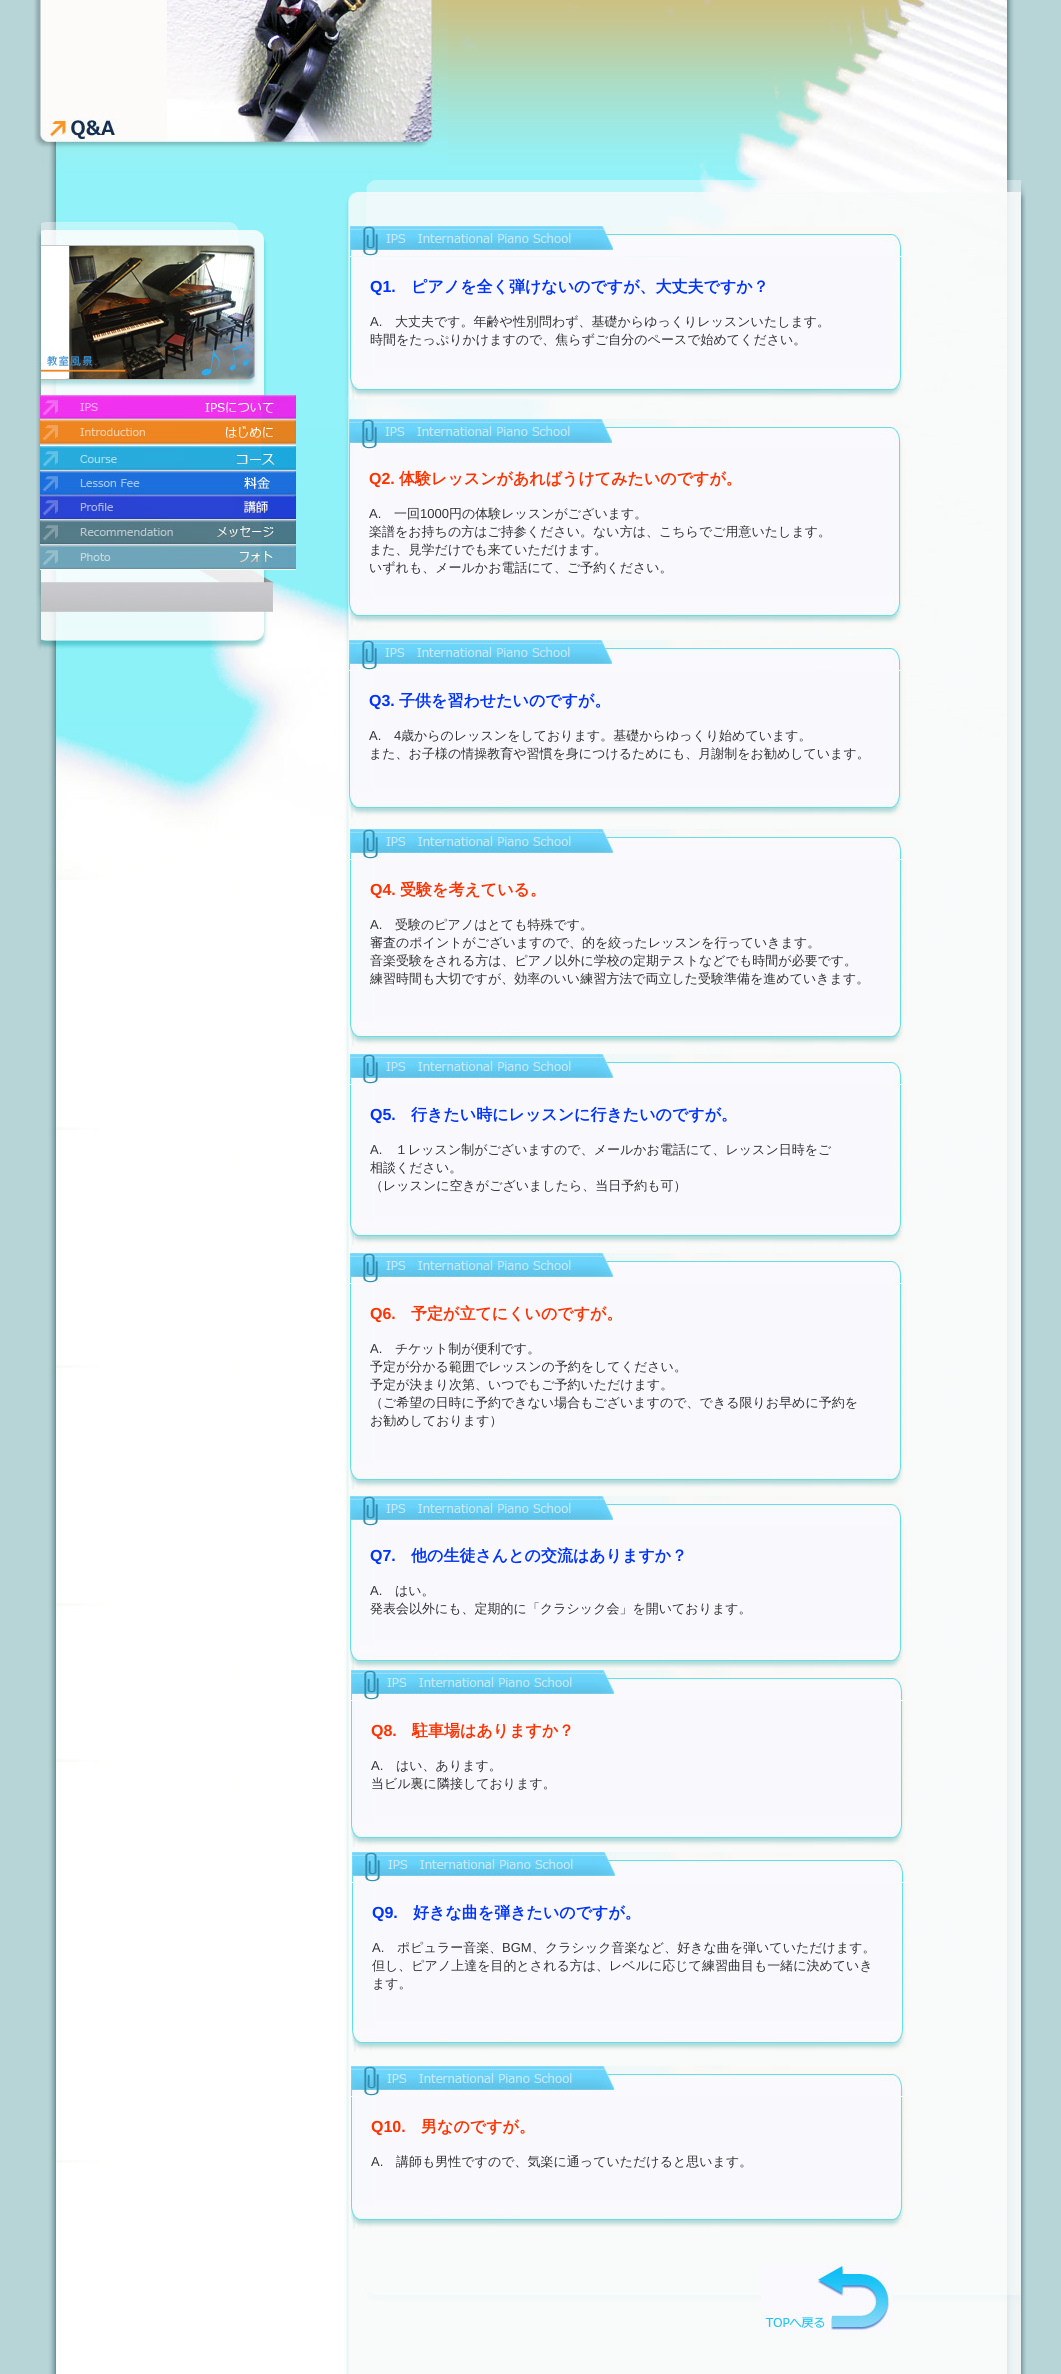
#include <cairo.h>
#include <math.h>
#include <stddef.h>


static void rgb(cairo_t *cr, int r, int g, int b)
{
	cairo_set_source_rgb(cr, r / 255.0, g / 255.0, b / 255.0);
}

static void face(cairo_t *cr, const char *family, double size, int italic, int bold)
{
	cairo_select_font_face(cr, family, italic ? CAIRO_FONT_SLANT_ITALIC : CAIRO_FONT_SLANT_NORMAL,
		bold ? CAIRO_FONT_WEIGHT_BOLD : CAIRO_FONT_WEIGHT_NORMAL);
	cairo_set_font_size(cr, size);
}

static void label(cairo_t *cr, double x, double y, const char *s)
{
	cairo_move_to(cr, x, y);
	cairo_show_text(cr, s);
}

static void image(cairo_t *cr, const char *path, double x, double y, double w, double h)
{
	cairo_surface_t *image = cairo_image_surface_create_from_png(path);
	cairo_save(cr);
	cairo_set_source_surface(cr, image, x, y);
	cairo_rectangle(cr, x, y, w, h);
	cairo_fill(cr);
	cairo_restore(cr);
	cairo_surface_destroy(image);
}

static void draw(cairo_t *cr) {
	rgb(cr, 183, 213, 215);
	cairo_paint(cr);
	image(cr, "image0.png", 36, 0, 990, 2374);
	image(cr, "image1.png", 34, 0, 414, 166);
	image(cr, "image2.png", 40, 395, 256, 25);
	image(cr, "image3.png", 40, 420, 256, 25);
	image(cr, "image4.png", 40, 445, 256, 25);
	image(cr, "image5.png", 40, 470, 256, 25);
	image(cr, "image6.png", 40, 495, 256, 25);
	image(cr, "image7.png", 40, 520, 256, 25);
	image(cr, "image8.png", 40, 545, 256, 25);
	image(cr, "image9.png", 350, 226, 554, 30);
	image(cr, "image10.png", 350, 257, 557, 113);
	face(cr, "Liberation Sans", 16, 0, 1);
	rgb(cr, 0, 51, 255);
	label(cr, 370, 292, "Q1.");
	face(cr, "WenQuanYi Zen Hei", 16, 0, 1);
	label(cr, 411, 292, "ピアノを全く弾けないのですが、大丈夫ですか？");
	face(cr, "Liberation Sans", 13, 0, 0);
	rgb(cr, 51, 51, 51);
	label(cr, 370, 326, "A.");
	face(cr, "WenQuanYi Zen Hei Medium", 13, 0, 0);
	label(cr, 395, 326, "大丈夫です。年齢や性別問わず、基礎からゆっくりレッスンいたします。");
	label(cr, 370, 344, "時間をたっぷりかけますので、焦らずご自分のペースで始めてください。");
	image(cr, "image11.png", 350, 369, 554, 30);
	image(cr, "image9.png", 349, 419, 554, 30);
	image(cr, "image12.png", 349, 449, 557, 146);
	face(cr, "Liberation Sans", 16, 0, 1);
	rgb(cr, 255, 51, 0);
	label(cr, 369, 484, "Q2.");
	face(cr, "WenQuanYi Zen Hei", 16, 0, 1);
	label(cr, 399, 484, "体験レッスンがあればうけてみたいのですが。");
	face(cr, "Liberation Sans", 13, 0, 0);
	rgb(cr, 51, 51, 51);
	label(cr, 369, 518, "A.");
	face(cr, "WenQuanYi Zen Hei Medium", 13, 0, 0);
	label(cr, 394, 518, "一回");
	face(cr, "Liberation Sans", 13, 0, 0);
	label(cr, 420, 518, "1000");
	face(cr, "WenQuanYi Zen Hei Medium", 13, 0, 0);
	label(cr, 449, 518, "円の体験レッスンがございます。");
	label(cr, 369, 536, "楽譜をお持ちの方はご持参ください。ない方は、こちらでご用意いたします。");
	label(cr, 369, 554, "また、見学だけでも来ていただけます。");
	label(cr, 369, 572, "いずれも、メールかお電話にて、ご予約ください。");
	image(cr, "image11.png", 349, 595, 554, 30);
	image(cr, "image9.png", 349, 640, 554, 30);
	image(cr, "image13.png", 349, 671, 557, 117);
	face(cr, "Liberation Sans", 16, 0, 1);
	rgb(cr, 0, 51, 255);
	label(cr, 369, 706, "Q3.");
	face(cr, "WenQuanYi Zen Hei", 16, 0, 1);
	label(cr, 399, 706, "子供を習わせたいのですが。");
	face(cr, "Liberation Sans", 13, 0, 0);
	rgb(cr, 51, 51, 51);
	label(cr, 369, 740, "A.");
	label(cr, 394, 740, "4");
	face(cr, "WenQuanYi Zen Hei Medium", 13, 0, 0);
	label(cr, 401, 740, "歳からのレッスンをしております。基礎からゆっくり始めています。");
	label(cr, 369, 758, "また、お子様の情操教育や習慣を身につけるためにも、月謝制をお勧めしています。");
	image(cr, "image11.png", 349, 787, 554, 30);
	image(cr, "image9.png", 350, 829, 554, 30);
	image(cr, "image14.png", 350, 860, 557, 157);
	face(cr, "Liberation Sans", 16, 0, 1);
	rgb(cr, 255, 51, 0);
	label(cr, 370, 895, "Q4.");
	face(cr, "WenQuanYi Zen Hei", 16, 0, 1);
	label(cr, 400, 895, "受験を考えている。");
	face(cr, "Liberation Sans", 13, 0, 0);
	rgb(cr, 51, 51, 51);
	label(cr, 370, 929, "A.");
	face(cr, "WenQuanYi Zen Hei Medium", 13, 0, 0);
	label(cr, 395, 929, "受験のピアノはとても特殊です。");
	label(cr, 370, 947, "審査のポイントがございますので、的を絞ったレッスンを行っていきます。");
	label(cr, 370, 965, "音楽受験をされる方は、ピアノ以外に学校の定期テストなどでも時間が必要です。");
	label(cr, 370, 983, "練習時間も大切ですが、効率のいい練習方法で両立した受験準備を進めていきます。");
	image(cr, "image11.png", 350, 1016, 554, 30);
	image(cr, "image9.png", 350, 1054, 554, 30);
	image(cr, "image15.png", 350, 1085, 557, 131);
	face(cr, "Liberation Sans", 16, 0, 1);
	rgb(cr, 0, 51, 255);
	label(cr, 370, 1120, "Q5.");
	face(cr, "WenQuanYi Zen Hei", 16, 0, 1);
	label(cr, 411, 1120, "行きたい時にレッスンに行きたいのですが。");
	face(cr, "Liberation Sans", 13, 0, 0);
	rgb(cr, 51, 51, 51);
	label(cr, 370, 1154, "A.");
	face(cr, "WenQuanYi Zen Hei Medium", 13, 0, 0);
	label(cr, 395, 1154, "１レッスン制がございますので、メールかお電話にて、レッスン日時をご");
	label(cr, 370, 1172, "相談ください。");
	label(cr, 370, 1190, "（レッスンに空きがございましたら、当日予約も可）");
	image(cr, "image11.png", 350, 1215, 554, 30);
	image(cr, "image9.png", 350, 1253, 554, 30);
	image(cr, "image16.png", 350, 1284, 557, 176);
	face(cr, "Liberation Sans", 16, 0, 1);
	rgb(cr, 255, 51, 0);
	label(cr, 370, 1319, "Q6.");
	face(cr, "WenQuanYi Zen Hei", 16, 0, 1);
	label(cr, 411, 1319, "予定が立てにくいのですが。");
	face(cr, "Liberation Sans", 13, 0, 0);
	rgb(cr, 51, 51, 51);
	label(cr, 370, 1353, "A.");
	face(cr, "WenQuanYi Zen Hei Medium", 13, 0, 0);
	label(cr, 395, 1353, "チケット制が便利です。");
	label(cr, 370, 1371, "予定が分かる範囲でレッスンの予約をしてください。");
	label(cr, 370, 1389, "予定が決まり次第、いつでもご予約いただけます。");
	label(cr, 370, 1407, "（ご希望の日時に予約できない場合もございますので、できる限りお早めに予約を");
	label(cr, 370, 1425, "お勧めしております）");
	image(cr, "image11.png", 350, 1459, 554, 30);
	image(cr, "image9.png", 350, 1496, 554, 30);
	image(cr, "image17.png", 350, 1526, 557, 114);
	face(cr, "Liberation Sans", 16, 0, 1);
	rgb(cr, 0, 51, 255);
	label(cr, 370, 1561, "Q7.");
	face(cr, "WenQuanYi Zen Hei", 16, 0, 1);
	label(cr, 411, 1561, "他の生徒さんとの交流はありますか？");
	face(cr, "Liberation Sans", 13, 0, 0);
	rgb(cr, 51, 51, 51);
	label(cr, 370, 1595, "A.");
	face(cr, "WenQuanYi Zen Hei Medium", 13, 0, 0);
	label(cr, 395, 1595, "はい。");
	label(cr, 370, 1613, "発表会以外にも、定期的に「クラシック会」を開いております。");
	image(cr, "image18.png", 350, 1640, 557, 30);
	image(cr, "image9.png", 351, 1670, 554, 30);
	image(cr, "image13.png", 351, 1701, 557, 117);
	face(cr, "Liberation Sans", 16, 0, 1);
	rgb(cr, 255, 51, 0);
	label(cr, 371, 1736, "Q8.");
	face(cr, "WenQuanYi Zen Hei", 16, 0, 1);
	label(cr, 412, 1736, "駐車場はありますか？");
	face(cr, "Liberation Sans", 13, 0, 0);
	rgb(cr, 51, 51, 51);
	label(cr, 371, 1770, "A.");
	face(cr, "WenQuanYi Zen Hei Medium", 13, 0, 0);
	label(cr, 396, 1770, "はい、あります。");
	label(cr, 371, 1788, "当ビル裏に隣接しております。");
	image(cr, "image11.png", 351, 1817, 554, 30);
	image(cr, "image9.png", 352, 1852, 554, 30);
	image(cr, "image19.png", 352, 1883, 557, 140);
	face(cr, "Liberation Sans", 16, 0, 1);
	rgb(cr, 0, 51, 255);
	label(cr, 372, 1918, "Q9.");
	face(cr, "WenQuanYi Zen Hei", 16, 0, 1);
	label(cr, 413, 1918, "好きな曲を弾きたいのですが。");
	face(cr, "Liberation Sans", 13, 0, 0);
	rgb(cr, 51, 51, 51);
	label(cr, 372, 1952, "A.");
	face(cr, "WenQuanYi Zen Hei Medium", 13, 0, 0);
	label(cr, 397, 1952, "ポピュラー音楽、");
	face(cr, "Liberation Sans", 13, 0, 0);
	label(cr, 502, 1952, "BGM");
	face(cr, "WenQuanYi Zen Hei Medium", 13, 0, 0);
	label(cr, 532, 1952, "、クラシック音楽など、好きな曲を弾いていただけます。");
	label(cr, 372, 1970, "但し、ピアノ上達を目的とされる方は、レベルに応じて練習曲目も一緒に決めていき");
	label(cr, 372, 1988, "ます。");
	image(cr, "image11.png", 352, 2022, 554, 30);
	image(cr, "image9.png", 351, 2066, 554, 30);
	image(cr, "image20.png", 351, 2097, 557, 102);
	face(cr, "Liberation Sans", 16, 0, 1);
	rgb(cr, 255, 51, 0);
	label(cr, 371, 2132, "Q10.");
	face(cr, "WenQuanYi Zen Hei", 16, 0, 1);
	label(cr, 421, 2132, "男なのですが。");
	face(cr, "Liberation Sans", 13, 0, 0);
	rgb(cr, 51, 51, 51);
	label(cr, 371, 2166, "A.");
	face(cr, "WenQuanYi Zen Hei Medium", 13, 0, 0);
	label(cr, 396, 2166, "講師も男性ですので、気楽に通っていただけると思います。");
	image(cr, "image18.png", 351, 2199, 557, 30);
	image(cr, "image21.png", 761, 2264, 131, 69);
}

int main(void) {
	cairo_surface_t *surface = cairo_image_surface_create(CAIRO_FORMAT_RGB24, 1061, 2374);
	cairo_t *cr = cairo_create(surface);
	cairo_font_options_t *options = cairo_font_options_create();
	cairo_font_options_set_hint_metrics(options, CAIRO_HINT_METRICS_OFF);
	cairo_font_options_set_hint_style(options, CAIRO_HINT_STYLE_NONE);
	cairo_set_font_options(cr, options);
	cairo_set_miter_limit(cr, 4);
	draw(cr);
	cairo_surface_write_to_png(surface, "render.png");
	cairo_font_options_destroy(options);
	cairo_destroy(cr);
	cairo_surface_destroy(surface);
	return 0;
}
